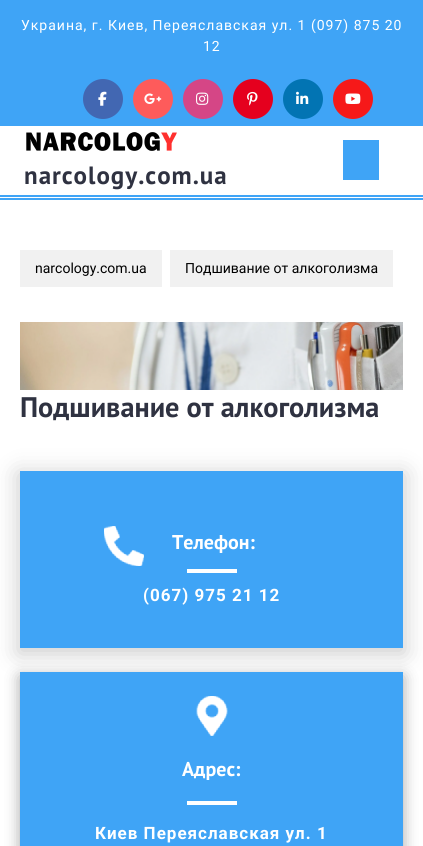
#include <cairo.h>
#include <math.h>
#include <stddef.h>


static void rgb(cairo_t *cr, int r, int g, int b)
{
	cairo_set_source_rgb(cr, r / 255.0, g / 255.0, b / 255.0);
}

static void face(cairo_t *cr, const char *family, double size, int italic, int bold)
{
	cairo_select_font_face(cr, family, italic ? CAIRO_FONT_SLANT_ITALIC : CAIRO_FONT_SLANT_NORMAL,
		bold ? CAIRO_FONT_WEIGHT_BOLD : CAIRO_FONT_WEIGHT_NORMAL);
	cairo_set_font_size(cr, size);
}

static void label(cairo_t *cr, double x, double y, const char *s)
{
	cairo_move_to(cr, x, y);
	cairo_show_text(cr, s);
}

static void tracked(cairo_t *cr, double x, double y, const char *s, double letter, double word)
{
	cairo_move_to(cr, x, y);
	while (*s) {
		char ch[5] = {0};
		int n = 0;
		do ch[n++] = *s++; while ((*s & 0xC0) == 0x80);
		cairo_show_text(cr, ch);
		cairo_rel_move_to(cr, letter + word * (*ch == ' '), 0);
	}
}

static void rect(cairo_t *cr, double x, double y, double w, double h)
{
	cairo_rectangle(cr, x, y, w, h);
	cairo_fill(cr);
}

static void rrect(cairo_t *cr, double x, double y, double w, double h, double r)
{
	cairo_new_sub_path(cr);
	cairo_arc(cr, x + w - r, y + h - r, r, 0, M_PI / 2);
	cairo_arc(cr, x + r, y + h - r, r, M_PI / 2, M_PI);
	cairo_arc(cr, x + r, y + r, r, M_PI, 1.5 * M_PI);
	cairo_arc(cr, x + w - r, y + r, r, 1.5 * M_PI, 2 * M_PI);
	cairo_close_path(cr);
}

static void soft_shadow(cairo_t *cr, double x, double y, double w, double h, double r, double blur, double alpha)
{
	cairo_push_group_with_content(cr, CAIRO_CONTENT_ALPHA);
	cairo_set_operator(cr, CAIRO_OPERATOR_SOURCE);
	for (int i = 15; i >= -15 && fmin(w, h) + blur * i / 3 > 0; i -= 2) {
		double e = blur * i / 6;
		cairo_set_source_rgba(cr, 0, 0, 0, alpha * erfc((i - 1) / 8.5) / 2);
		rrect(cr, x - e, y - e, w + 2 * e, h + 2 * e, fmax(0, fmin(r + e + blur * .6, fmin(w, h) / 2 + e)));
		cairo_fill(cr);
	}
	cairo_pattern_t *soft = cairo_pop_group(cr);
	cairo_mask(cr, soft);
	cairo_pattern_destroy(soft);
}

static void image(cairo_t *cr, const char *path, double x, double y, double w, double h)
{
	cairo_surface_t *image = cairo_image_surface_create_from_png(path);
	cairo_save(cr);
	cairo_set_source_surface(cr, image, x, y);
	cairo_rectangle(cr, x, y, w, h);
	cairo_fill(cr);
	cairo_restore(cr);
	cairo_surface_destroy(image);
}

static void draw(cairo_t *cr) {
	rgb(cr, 255, 255, 255);
	cairo_paint(cr);
	rgb(cr, 63, 164, 246);
	rect(cr, 0, 0, 423, 126);
	face(cr, "Roboto", 14, 0, 0);
	rgb(cr, 255, 255, 255);
	tracked(cr, 21, 30, "Украина, г. Киев, Переяславская ул. 1 (097) 875 20", 1, 0);
	tracked(cr, 203, 51, "12", 1, 0);
	rgb(cr, 66, 103, 178);
	cairo_new_path(cr);
	cairo_arc(cr, 103, 99, 20, 0, 2 * M_PI);
	cairo_fill(cr);
	image(cr, "image0.png", 98, 91, 9, 15);
	rgb(cr, 254, 91, 91);
	cairo_arc(cr, 153, 99, 20, 0, 2 * M_PI);
	cairo_fill(cr);
	image(cr, "image1.png", 144, 93, 18, 11);
	rgb(cr, 213, 70, 134);
	cairo_arc(cr, 203, 99, 20, 0, 2 * M_PI);
	cairo_fill(cr);
	image(cr, "image2.png", 196, 92, 13, 13);
	rgb(cr, 229, 0, 30);
	cairo_arc(cr, 253, 99, 20, 0, 2 * M_PI);
	cairo_fill(cr);
	image(cr, "image3.png", 247, 91, 11, 15);
	rgb(cr, 2, 116, 179);
	cairo_arc(cr, 303, 99, 20, 0, 2 * M_PI);
	cairo_fill(cr);
	image(cr, "image4.png", 296, 91, 13, 13);
	rgb(cr, 246, 25, 25);
	cairo_arc(cr, 353, 99, 20, 0, 2 * M_PI);
	cairo_fill(cr);
	image(cr, "image5.png", 345, 93, 16, 11);
	rgb(cr, 63, 164, 246);
	rect(cr, 0, 195, 423, 2);
	rect(cr, 0, 198, 423, 2);
	image(cr, "image6.png", 26, 132, 151, 19);
	face(cr, "PT Sans", 25, 0, 1);
	rgb(cr, 47, 50, 65);
	tracked(cr, 24, 184, "narcology.com.ua", 1, 0);
	rgb(cr, 63, 164, 246);
	rect(cr, 343, 140, 36, 40);
	rgb(cr, 241, 241, 241);
	rect(cr, 20, 250, 142, 37);
	face(cr, "Roboto", 14, 0, 0);
	rgb(cr, 0, 0, 0);
	label(cr, 35, 273, "narcology.com.ua");
	rgb(cr, 241, 241, 241);
	rect(cr, 170, 250, 223, 37);
	rgb(cr, 0, 0, 0);
	label(cr, 185, 273, "Подшивание от алкоголизма");
	image(cr, "image7.png", 20, 322, 383, 68);
	face(cr, "PT Sans", 28.3, 0, 1);
	rgb(cr, 47, 50, 65);
	label(cr, 20, 417, "Подшивание от алкоголизма");
	rgb(cr, 0, 0, 0);
	soft_shadow(cr, 18, 473, 387, 181, 0, 11.5, 0.2);
	rgb(cr, 63, 164, 246);
	rect(cr, 20, 471, 383, 177);
	image(cr, "image8.png", 104, 526, 40, 40);
	face(cr, "PT Sans", 20, 0, 1);
	rgb(cr, 255, 255, 255);
	label(cr, 172, 549, "Телефон:");
	rect(cr, 187, 569, 50, 4);
	face(cr, "Roboto", 17, 0, 1);
	tracked(cr, 143, 601, "(067) 975 21 12", 1, 0);
	rgb(cr, 0, 0, 0);
	soft_shadow(cr, 20, 677, 383, 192, 0, 7.5, 0.35);
	rgb(cr, 63, 164, 246);
	rect(cr, 20, 672, 383, 174);
	image(cr, "image9.png", 196, 696, 32, 40);
	face(cr, "PT Sans", 20, 0, 1);
	rgb(cr, 255, 255, 255);
	label(cr, 182, 776, "Адрес:");
	rect(cr, 187, 801, 50, 4);
	face(cr, "Roboto", 17, 0, 1);
	tracked(cr, 95, 839, "Киев Переяславская ул. 1", 1, 0);
}

int main(void) {
	cairo_surface_t *surface = cairo_image_surface_create(CAIRO_FORMAT_RGB24, 423, 846);
	cairo_t *cr = cairo_create(surface);
	cairo_font_options_t *options = cairo_font_options_create();
	cairo_font_options_set_hint_metrics(options, CAIRO_HINT_METRICS_OFF);
	cairo_font_options_set_hint_style(options, CAIRO_HINT_STYLE_NONE);
	cairo_set_font_options(cr, options);
	cairo_set_miter_limit(cr, 4);
	draw(cr);
	cairo_surface_write_to_png(surface, "render.png");
	cairo_font_options_destroy(options);
	cairo_destroy(cr);
	cairo_surface_destroy(surface);
	return 0;
}
